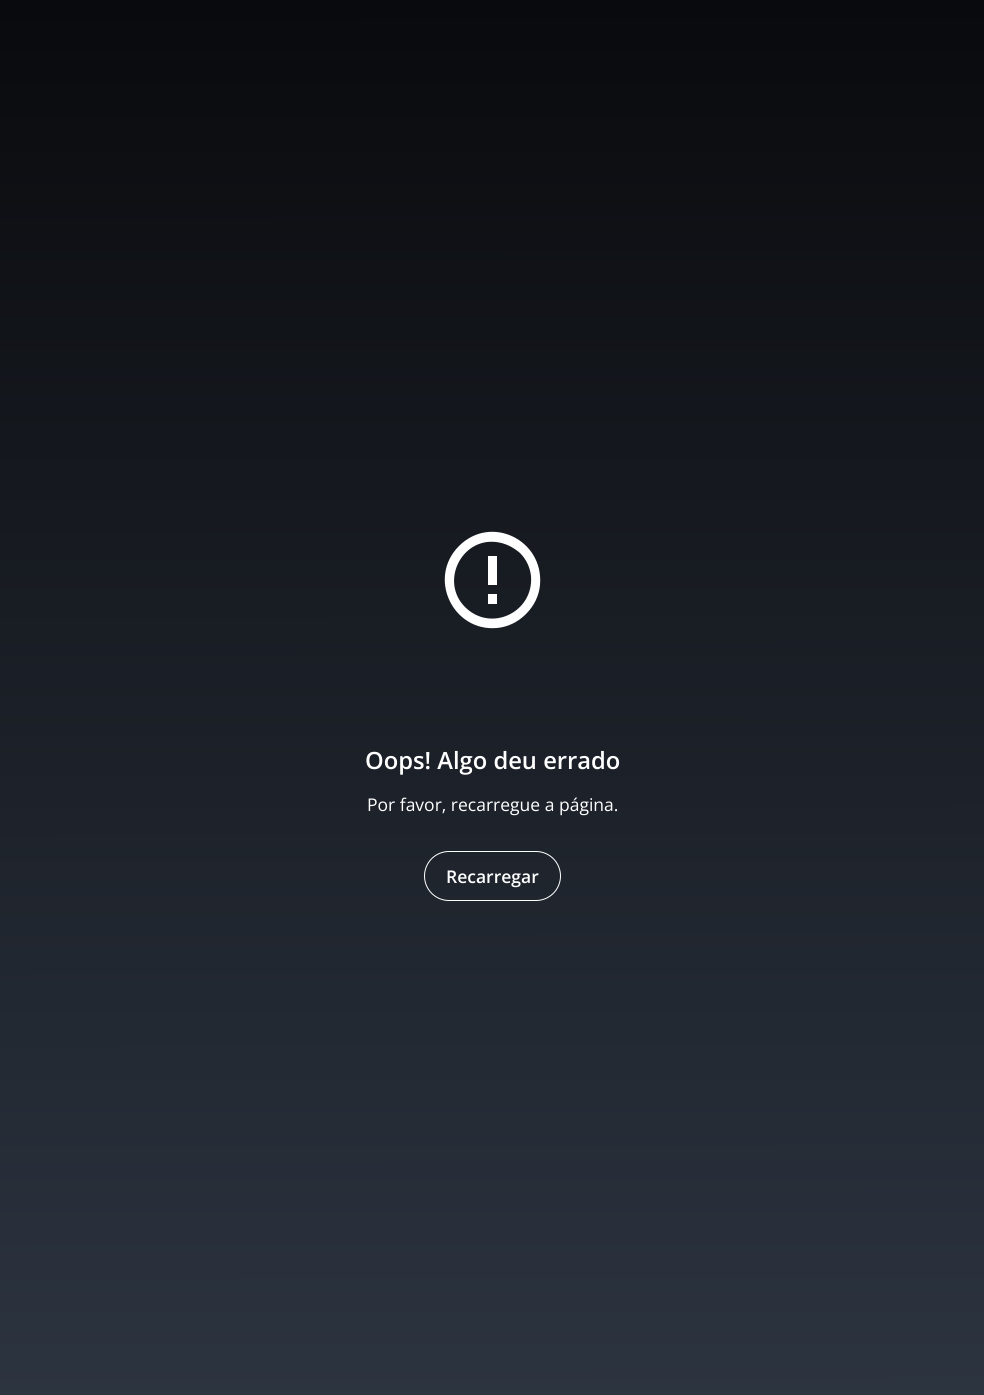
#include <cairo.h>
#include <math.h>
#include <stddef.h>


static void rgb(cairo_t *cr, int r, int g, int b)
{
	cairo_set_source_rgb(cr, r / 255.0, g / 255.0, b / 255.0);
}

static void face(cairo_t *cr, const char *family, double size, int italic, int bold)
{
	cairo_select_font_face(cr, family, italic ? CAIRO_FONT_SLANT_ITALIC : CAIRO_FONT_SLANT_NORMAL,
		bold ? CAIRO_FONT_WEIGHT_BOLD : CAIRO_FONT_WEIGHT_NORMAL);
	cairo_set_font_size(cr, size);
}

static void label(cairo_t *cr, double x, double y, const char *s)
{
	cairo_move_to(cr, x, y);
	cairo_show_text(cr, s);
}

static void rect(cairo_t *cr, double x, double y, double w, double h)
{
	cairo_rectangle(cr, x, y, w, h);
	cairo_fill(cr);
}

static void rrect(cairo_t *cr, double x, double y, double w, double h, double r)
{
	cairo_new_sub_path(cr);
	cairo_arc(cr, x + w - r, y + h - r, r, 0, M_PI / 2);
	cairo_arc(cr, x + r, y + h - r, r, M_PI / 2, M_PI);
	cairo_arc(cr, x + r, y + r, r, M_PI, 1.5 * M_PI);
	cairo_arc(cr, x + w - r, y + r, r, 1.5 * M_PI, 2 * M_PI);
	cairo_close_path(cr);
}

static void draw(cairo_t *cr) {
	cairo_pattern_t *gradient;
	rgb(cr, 255, 255, 255);
	cairo_paint(cr);
	gradient = cairo_pattern_create_linear(492, 0, 493, 1395);
	cairo_pattern_add_color_stop_rgba(gradient, 0, 0.035, 0.039, 0.051, 1);
	cairo_pattern_add_color_stop_rgba(gradient, 1, 0.173, 0.204, 0.251, 1);
	cairo_set_source(cr, gradient);
	cairo_pattern_destroy(gradient);
	rect(cr, 0, 0, 984, 1395);
	rgb(cr, 255, 255, 255);
	cairo_new_path(cr);
	cairo_move_to(cr, 465, 607);
	cairo_curve_to(cr, 491, 633, 534, 612, 531, 576);
	cairo_curve_to(cr, 530, 567, 526, 559, 520, 553);
	cairo_curve_to(cr, 513, 547, 505, 543, 496, 542);
	cairo_curve_to(cr, 461, 538, 440, 582, 465, 607);
	cairo_close_path(cr);
	cairo_move_to(cr, 459, 546);
	cairo_curve_to(cr, 491, 514, 544, 540, 540, 585);
	cairo_curve_to(cr, 539, 596, 534, 606, 526, 614);
	cairo_curve_to(cr, 518, 622, 508, 627, 497, 628);
	cairo_curve_to(cr, 453, 632, 427, 578, 459, 546);
	cairo_close_path(cr);
	cairo_move_to(cr, 488, 556);
	cairo_line_to(cr, 497, 556);
	cairo_line_to(cr, 497, 585);
	cairo_line_to(cr, 488, 585);
	cairo_close_path(cr);
	cairo_move_to(cr, 488, 594);
	cairo_line_to(cr, 497, 594);
	cairo_line_to(cr, 497, 604);
	cairo_line_to(cr, 488, 604);
	cairo_close_path(cr);
	cairo_fill(cr);
	face(cr, "Open Sans SemiBold", 23.75, 0, 0);
	label(cr, 365, 769, "Oops! Algo deu errado");
	face(cr, "Open Sans", 17.5, 0, 0);
	label(cr, 367, 811, "Por favor, recarregue a página.");
	rrect(cr, 424.5, 851.5, 136, 49, 24.5);
	cairo_set_line_width(cr, 1);
	cairo_stroke(cr);
	face(cr, "Open Sans SemiBold", 17.5, 0, 0);
	label(cr, 446, 883, "Recarregar");
}

int main(void) {
	cairo_surface_t *surface = cairo_image_surface_create(CAIRO_FORMAT_RGB24, 984, 1395);
	cairo_t *cr = cairo_create(surface);
	cairo_font_options_t *options = cairo_font_options_create();
	cairo_font_options_set_hint_metrics(options, CAIRO_HINT_METRICS_OFF);
	cairo_font_options_set_hint_style(options, CAIRO_HINT_STYLE_NONE);
	cairo_set_font_options(cr, options);
	cairo_set_miter_limit(cr, 4);
	draw(cr);
	cairo_surface_write_to_png(surface, "render.png");
	cairo_font_options_destroy(options);
	cairo_destroy(cr);
	cairo_surface_destroy(surface);
	return 0;
}
